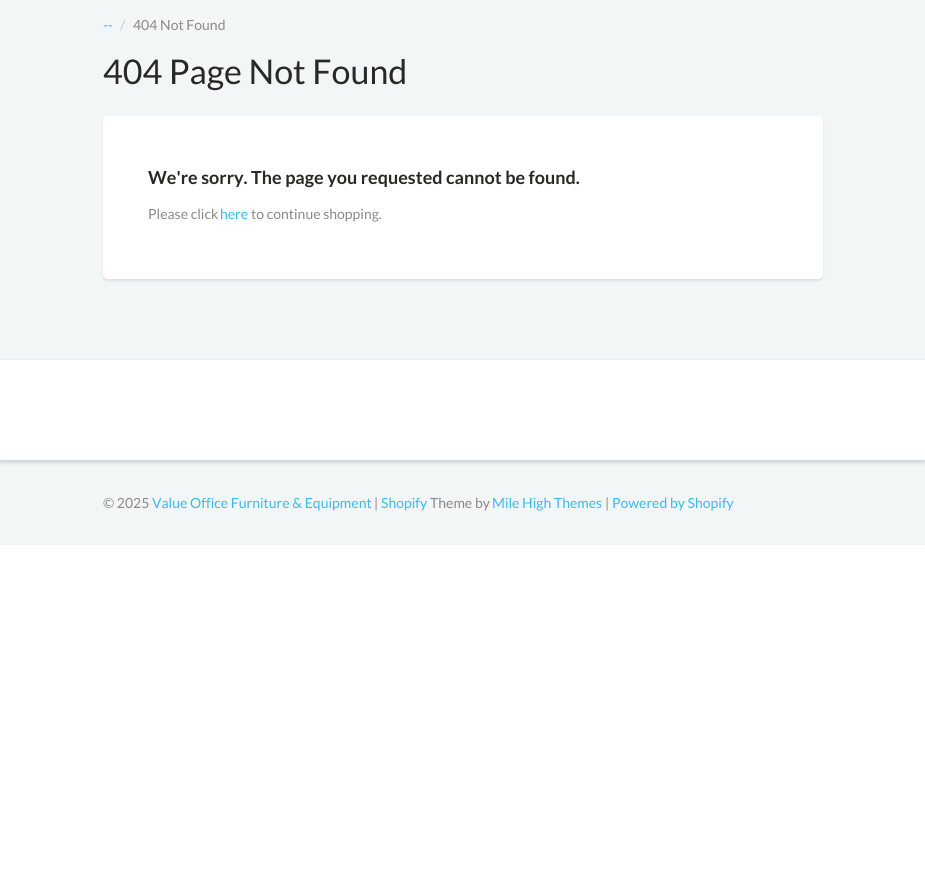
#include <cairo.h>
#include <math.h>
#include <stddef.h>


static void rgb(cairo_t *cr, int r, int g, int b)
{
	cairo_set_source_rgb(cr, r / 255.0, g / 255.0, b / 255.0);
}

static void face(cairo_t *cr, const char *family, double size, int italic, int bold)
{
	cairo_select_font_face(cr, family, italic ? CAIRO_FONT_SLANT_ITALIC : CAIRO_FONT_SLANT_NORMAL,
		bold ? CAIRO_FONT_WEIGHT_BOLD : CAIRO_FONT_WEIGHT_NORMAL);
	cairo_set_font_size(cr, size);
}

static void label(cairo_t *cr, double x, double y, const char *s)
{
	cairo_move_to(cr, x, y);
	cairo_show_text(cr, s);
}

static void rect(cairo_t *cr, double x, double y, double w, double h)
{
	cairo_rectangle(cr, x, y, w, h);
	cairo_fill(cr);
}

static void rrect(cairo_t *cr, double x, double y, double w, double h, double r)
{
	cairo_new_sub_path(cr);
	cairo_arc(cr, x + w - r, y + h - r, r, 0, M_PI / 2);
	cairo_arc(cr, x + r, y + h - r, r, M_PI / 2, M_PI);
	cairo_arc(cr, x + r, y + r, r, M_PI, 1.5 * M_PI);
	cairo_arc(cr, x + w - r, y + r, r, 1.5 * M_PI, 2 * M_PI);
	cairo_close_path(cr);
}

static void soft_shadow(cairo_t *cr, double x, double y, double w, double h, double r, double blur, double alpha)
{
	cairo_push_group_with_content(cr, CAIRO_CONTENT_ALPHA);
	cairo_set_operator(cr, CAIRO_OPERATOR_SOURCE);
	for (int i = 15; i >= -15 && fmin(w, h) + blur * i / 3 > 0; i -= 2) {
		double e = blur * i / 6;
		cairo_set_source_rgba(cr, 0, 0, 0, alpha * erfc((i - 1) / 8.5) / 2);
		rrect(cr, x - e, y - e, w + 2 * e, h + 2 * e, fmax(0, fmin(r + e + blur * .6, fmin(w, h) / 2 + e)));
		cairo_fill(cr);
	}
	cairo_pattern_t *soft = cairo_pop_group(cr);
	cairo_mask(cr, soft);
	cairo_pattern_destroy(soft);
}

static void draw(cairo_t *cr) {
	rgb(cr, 255, 255, 255);
	cairo_paint(cr);
	rgb(cr, 243, 246, 246);
	rect(cr, 0, 0, 925, 359);
	face(cr, "Lato", 14, 0, 0);
	rgb(cr, 55, 187, 236);
	label(cr, 103, 30, "--");
	rgb(cr, 204, 204, 204);
	label(cr, 120, 30, "/");
	rgb(cr, 137, 137, 137);
	label(cr, 133, 30, "404 Not Found");
	face(cr, "Lato", 34, 0, 0);
	rgb(cr, 40, 40, 39);
	label(cr, 103, 84, "404 Page Not Found");
	rgb(cr, 11, 25, 28);
	soft_shadow(cr, 103, 118, 720, 163, 5, 1, 0.1);
	rgb(cr, 255, 255, 255);
	rrect(cr, 103, 116, 720, 163, 5);
	cairo_fill(cr);
	face(cr, "Lato", 18, 0, 1);
	rgb(cr, 40, 40, 39);
	label(cr, 148, 184, "We're sorry. The page you requested cannot be found.");
	face(cr, "Lato", 14, 0, 0);
	rgb(cr, 137, 137, 137);
	label(cr, 148, 219, "Please click");
	rgb(cr, 55, 187, 236);
	label(cr, 220, 219, "here");
	rgb(cr, 137, 137, 137);
	label(cr, 251, 219, "to continue shopping.");
	rgb(cr, 243, 246, 246);
	rect(cr, 0, 460, 925, 85);
	cairo_save(cr);
	cairo_rectangle(cr, 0, 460, 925, 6);
	cairo_clip(cr);
	rgb(cr, 209, 215, 215);
	soft_shadow(cr, 0, 362, 925, 101, 0, 1.5, 1);
	cairo_restore(cr);
	rgb(cr, 236, 239, 239);
	rect(cr, 0, 359, 925, 1);
	rgb(cr, 137, 137, 137);
	label(cr, 103, 508, "© 2025");
	rgb(cr, 55, 187, 236);
	label(cr, 152, 508, "Value Office Furniture & Equipment");
	rgb(cr, 137, 137, 137);
	label(cr, 374, 508, "|");
	rgb(cr, 55, 187, 236);
	label(cr, 381, 508, "Shopify");
	rgb(cr, 137, 137, 137);
	label(cr, 430, 508, "Theme by");
	rgb(cr, 55, 187, 236);
	label(cr, 492, 508, "Mile High Themes");
	rgb(cr, 137, 137, 137);
	label(cr, 605, 508, "|");
	rgb(cr, 55, 187, 236);
	label(cr, 612, 508, "Powered by Shopify");
}

int main(void) {
	cairo_surface_t *surface = cairo_image_surface_create(CAIRO_FORMAT_RGB24, 925, 882);
	cairo_t *cr = cairo_create(surface);
	cairo_font_options_t *options = cairo_font_options_create();
	cairo_font_options_set_hint_metrics(options, CAIRO_HINT_METRICS_OFF);
	cairo_font_options_set_hint_style(options, CAIRO_HINT_STYLE_NONE);
	cairo_set_font_options(cr, options);
	cairo_set_miter_limit(cr, 4);
	draw(cr);
	cairo_surface_write_to_png(surface, "render.png");
	cairo_font_options_destroy(options);
	cairo_destroy(cr);
	cairo_surface_destroy(surface);
	return 0;
}
